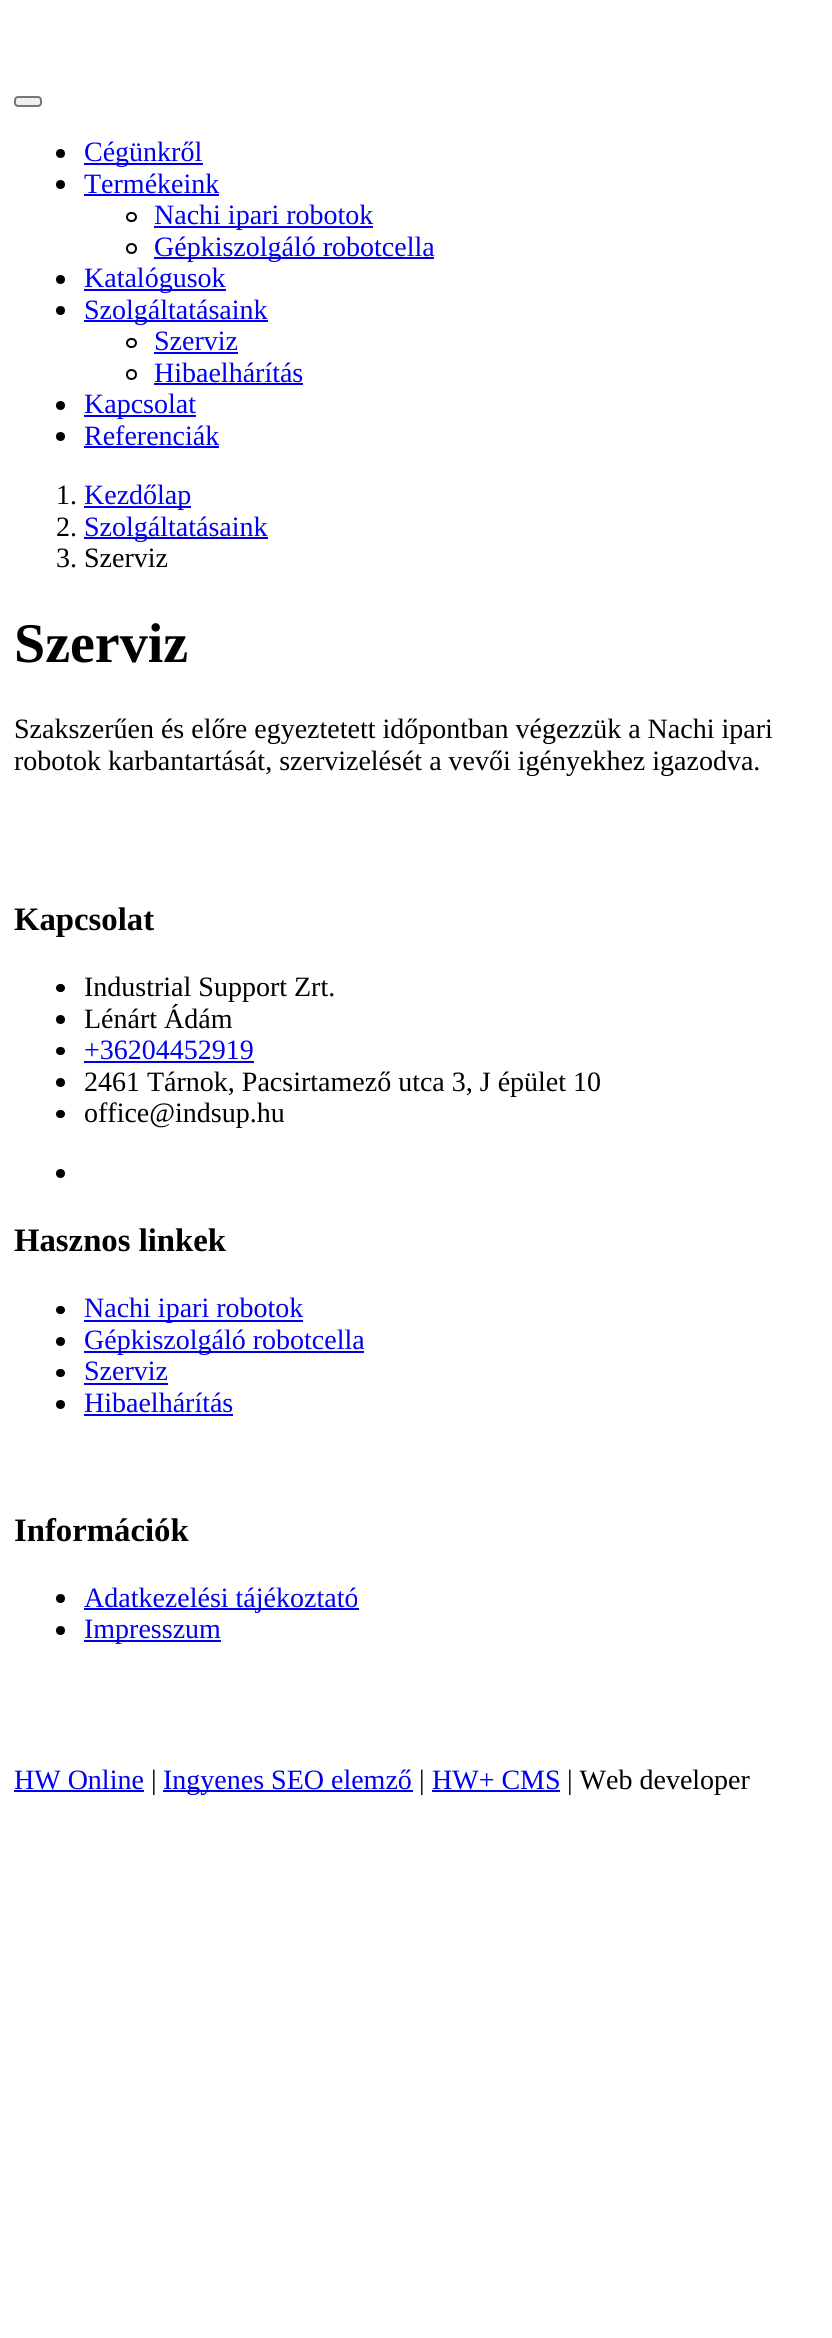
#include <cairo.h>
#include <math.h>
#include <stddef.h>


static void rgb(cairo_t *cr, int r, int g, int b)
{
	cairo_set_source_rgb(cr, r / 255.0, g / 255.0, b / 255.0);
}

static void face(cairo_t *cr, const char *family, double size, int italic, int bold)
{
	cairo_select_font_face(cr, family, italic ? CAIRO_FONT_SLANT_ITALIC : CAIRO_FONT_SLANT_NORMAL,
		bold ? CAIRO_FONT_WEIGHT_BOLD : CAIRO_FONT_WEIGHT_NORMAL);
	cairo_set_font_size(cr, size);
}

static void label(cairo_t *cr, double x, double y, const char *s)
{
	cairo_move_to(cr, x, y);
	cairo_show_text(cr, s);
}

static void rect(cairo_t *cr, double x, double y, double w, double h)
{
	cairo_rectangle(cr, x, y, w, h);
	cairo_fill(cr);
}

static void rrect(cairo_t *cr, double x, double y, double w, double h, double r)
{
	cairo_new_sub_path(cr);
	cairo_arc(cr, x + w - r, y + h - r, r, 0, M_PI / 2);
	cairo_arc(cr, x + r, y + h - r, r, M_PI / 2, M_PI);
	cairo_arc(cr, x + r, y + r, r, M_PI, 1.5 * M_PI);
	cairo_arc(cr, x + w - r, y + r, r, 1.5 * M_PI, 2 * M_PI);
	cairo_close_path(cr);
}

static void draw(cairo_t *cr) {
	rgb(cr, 255, 255, 255);
	cairo_paint(cr);
	rgb(cr, 239, 239, 239);
	rrect(cr, 15, 97, 26, 9, 3);
	cairo_fill_preserve(cr);
	rgb(cr, 118, 118, 118);
	cairo_stroke(cr);
	rgb(cr, 0, 0, 0);
	cairo_arc(cr, 60.5, 153.5, 4.5, 0, 2 * M_PI);
	cairo_fill(cr);
	rgb(cr, 0, 0, 238);
	rect(cr, 84, 163, 119, 2);
	face(cr, "Liberation Serif", 28, 0, 0);
	label(cr, 84, 161, "Cégünkről");
	rgb(cr, 0, 0, 0);
	cairo_new_path(cr);
	cairo_arc(cr, 60.5, 184.5, 4.5, 0, 2 * M_PI);
	cairo_fill(cr);
	rgb(cr, 0, 0, 238);
	label(cr, 84, 193, "Termékeink");
	rect(cr, 84, 194, 135, 2);
	rrect(cr, 127, 213, 9, 8, 4);
	rgb(cr, 0, 0, 0);
	cairo_stroke(cr);
	rgb(cr, 0, 0, 238);
	rect(cr, 154, 226, 219, 2);
	label(cr, 154, 224, "Nachi ipari robotok");
	cairo_new_path(cr);
	cairo_arc(cr, 131.5, 248.5, 4.5, 0, 2 * M_PI);
	rgb(cr, 0, 0, 0);
	cairo_stroke(cr);
	rgb(cr, 0, 0, 238);
	rect(cr, 154, 257, 280, 2);
	label(cr, 154, 256, "Gépkiszolgáló robotcella");
	rgb(cr, 0, 0, 0);
	cairo_new_path(cr);
	cairo_arc(cr, 60.5, 279.5, 4.5, 0, 2 * M_PI);
	cairo_fill(cr);
	rgb(cr, 0, 0, 238);
	rect(cr, 84, 289, 142, 2);
	label(cr, 84, 287, "Katalógusok");
	rgb(cr, 0, 0, 0);
	cairo_new_path(cr);
	cairo_arc(cr, 60.5, 310.5, 4.5, 0, 2 * M_PI);
	cairo_fill(cr);
	rgb(cr, 0, 0, 238);
	rect(cr, 84, 320, 184, 2);
	label(cr, 84, 319, "Szolgáltatásaink");
	rrect(cr, 127, 339, 9, 8, 4);
	rgb(cr, 0, 0, 0);
	cairo_stroke(cr);
	rgb(cr, 0, 0, 238);
	label(cr, 154, 350, "Szerviz");
	rect(cr, 154, 352, 84, 2);
	cairo_new_path(cr);
	cairo_arc(cr, 131.5, 374.5, 4.5, 0, 2 * M_PI);
	rgb(cr, 0, 0, 0);
	cairo_stroke(cr);
	rgb(cr, 0, 0, 238);
	label(cr, 154, 382, "Hibaelhárítás");
	rect(cr, 154, 383, 149, 2);
	rgb(cr, 0, 0, 0);
	cairo_new_path(cr);
	cairo_arc(cr, 60.5, 405.5, 4.5, 0, 2 * M_PI);
	cairo_fill(cr);
	rgb(cr, 0, 0, 238);
	rect(cr, 84, 415, 112, 2);
	label(cr, 84, 413, "Kapcsolat");
	rgb(cr, 0, 0, 0);
	cairo_new_path(cr);
	cairo_arc(cr, 60.5, 436.5, 4.5, 0, 2 * M_PI);
	cairo_fill(cr);
	rgb(cr, 0, 0, 238);
	label(cr, 84, 445, "Referenciák");
	rect(cr, 84, 446, 135, 2);
	rgb(cr, 0, 0, 0);
	label(cr, 56, 504, "1.");
	rgb(cr, 0, 0, 238);
	rect(cr, 84, 506, 107, 2);
	label(cr, 84, 504, "Kezdőlap");
	rgb(cr, 0, 0, 0);
	label(cr, 56, 536, "2.");
	rgb(cr, 0, 0, 238);
	rect(cr, 84, 537, 184, 2);
	label(cr, 84, 536, "Szolgáltatásaink");
	rgb(cr, 0, 0, 0);
	label(cr, 56, 567, "3. Szerviz");
	face(cr, "Liberation Serif", 56, 0, 1);
	label(cr, 14, 662, "Szerviz");
	face(cr, "Liberation Serif", 28, 0, 0);
	label(cr, 14, 738, "Szakszerűen és előre egyeztetett időpontban végezzük a Nachi ipari");
	label(cr, 14, 770, "robotok karbantartását, szervizelését a vevői igényekhez igazodva.");
	face(cr, "Liberation Serif", 32.75, 0, 1);
	label(cr, 14, 930, "Kapcsolat");
	rrect(cr, 56, 984, 9, 8, 4);
	cairo_fill(cr);
	face(cr, "Liberation Serif", 28, 0, 0);
	label(cr, 84, 996, "Industrial Support Zrt.");
	cairo_new_path(cr);
	cairo_arc(cr, 60.5, 1019.5, 4.5, 0, 2 * M_PI);
	cairo_fill(cr);
	label(cr, 84, 1028, "Lénárt Ádám");
	rrect(cr, 56, 1047, 9, 8, 4);
	cairo_fill(cr);
	rgb(cr, 0, 0, 238);
	label(cr, 84, 1059, "+36204452919");
	rect(cr, 84, 1061, 170, 2);
	rgb(cr, 0, 0, 0);
	cairo_new_path(cr);
	cairo_arc(cr, 60.5, 1082.5, 4.5, 0, 2 * M_PI);
	cairo_fill(cr);
	label(cr, 84, 1091, "2461 Tárnok, Pacsirtamező utca 3, J épület 10");
	rrect(cr, 56, 1110, 9, 8, 4);
	cairo_fill(cr);
	label(cr, 84, 1122, "office@indsup.hu");
	cairo_new_path(cr);
	cairo_arc(cr, 60.5, 1173.5, 4.5, 0, 2 * M_PI);
	cairo_fill(cr);
	face(cr, "Liberation Serif", 32.75, 0, 1);
	label(cr, 14, 1251, "Hasznos linkek");
	rrect(cr, 56, 1306, 9, 8, 4);
	cairo_fill(cr);
	rgb(cr, 0, 0, 238);
	rect(cr, 84, 1320, 219, 2);
	face(cr, "Liberation Serif", 28, 0, 0);
	label(cr, 84, 1317, "Nachi ipari robotok");
	rgb(cr, 0, 0, 0);
	cairo_new_path(cr);
	cairo_arc(cr, 60.5, 1341.5, 4.5, 0, 2 * M_PI);
	cairo_fill(cr);
	rgb(cr, 0, 0, 238);
	rect(cr, 84, 1351, 280, 2);
	label(cr, 84, 1349, "Gépkiszolgáló robotcella");
	rgb(cr, 0, 0, 0);
	rrect(cr, 56, 1369, 9, 8, 4);
	cairo_fill(cr);
	rgb(cr, 0, 0, 238);
	label(cr, 84, 1380, "Szerviz");
	rect(cr, 84, 1383, 84, 2);
	rgb(cr, 0, 0, 0);
	cairo_new_path(cr);
	cairo_arc(cr, 60.5, 1404.5, 4.5, 0, 2 * M_PI);
	cairo_fill(cr);
	rgb(cr, 0, 0, 238);
	label(cr, 84, 1412, "Hibaelhárítás");
	rect(cr, 84, 1414, 149, 2);
	face(cr, "Liberation Serif", 32.75, 0, 1);
	rgb(cr, 0, 0, 0);
	label(cr, 14, 1541, "Információk");
	cairo_new_path(cr);
	cairo_arc(cr, 60.5, 1598.5, 4.5, 0, 2 * M_PI);
	cairo_fill(cr);
	rgb(cr, 0, 0, 238);
	rect(cr, 84, 1608, 275, 2);
	face(cr, "Liberation Serif", 28, 0, 0);
	label(cr, 84, 1607, "Adatkezelési tájékoztató");
	rgb(cr, 0, 0, 0);
	cairo_new_path(cr);
	cairo_arc(cr, 60.5, 1630.5, 4.5, 0, 2 * M_PI);
	cairo_fill(cr);
	rgb(cr, 0, 0, 238);
	rect(cr, 84, 1640, 137, 2);
	label(cr, 84, 1638, "Impresszum");
	label(cr, 14, 1789, "HW Online");
	rect(cr, 14, 1790, 130, 2);
	rgb(cr, 0, 0, 0);
	label(cr, 151, 1789, "|");
	rgb(cr, 0, 0, 238);
	rect(cr, 163, 1790, 250, 2);
	label(cr, 163, 1789, "Ingyenes SEO elemző");
	rgb(cr, 0, 0, 0);
	label(cr, 419, 1789, "|");
	rgb(cr, 0, 0, 238);
	label(cr, 432, 1789, "HW+ CMS");
	rect(cr, 432, 1790, 128, 2);
	rgb(cr, 0, 0, 0);
	label(cr, 567, 1789, "| Web developer");
}

int main(void) {
	cairo_surface_t *surface = cairo_image_surface_create(CAIRO_FORMAT_RGB24, 832, 2338);
	cairo_t *cr = cairo_create(surface);
	cairo_font_options_t *options = cairo_font_options_create();
	cairo_font_options_set_hint_metrics(options, CAIRO_HINT_METRICS_OFF);
	cairo_font_options_set_hint_style(options, CAIRO_HINT_STYLE_NONE);
	cairo_set_font_options(cr, options);
	cairo_set_miter_limit(cr, 4);
	draw(cr);
	cairo_surface_write_to_png(surface, "render.png");
	cairo_font_options_destroy(options);
	cairo_destroy(cr);
	cairo_surface_destroy(surface);
	return 0;
}
